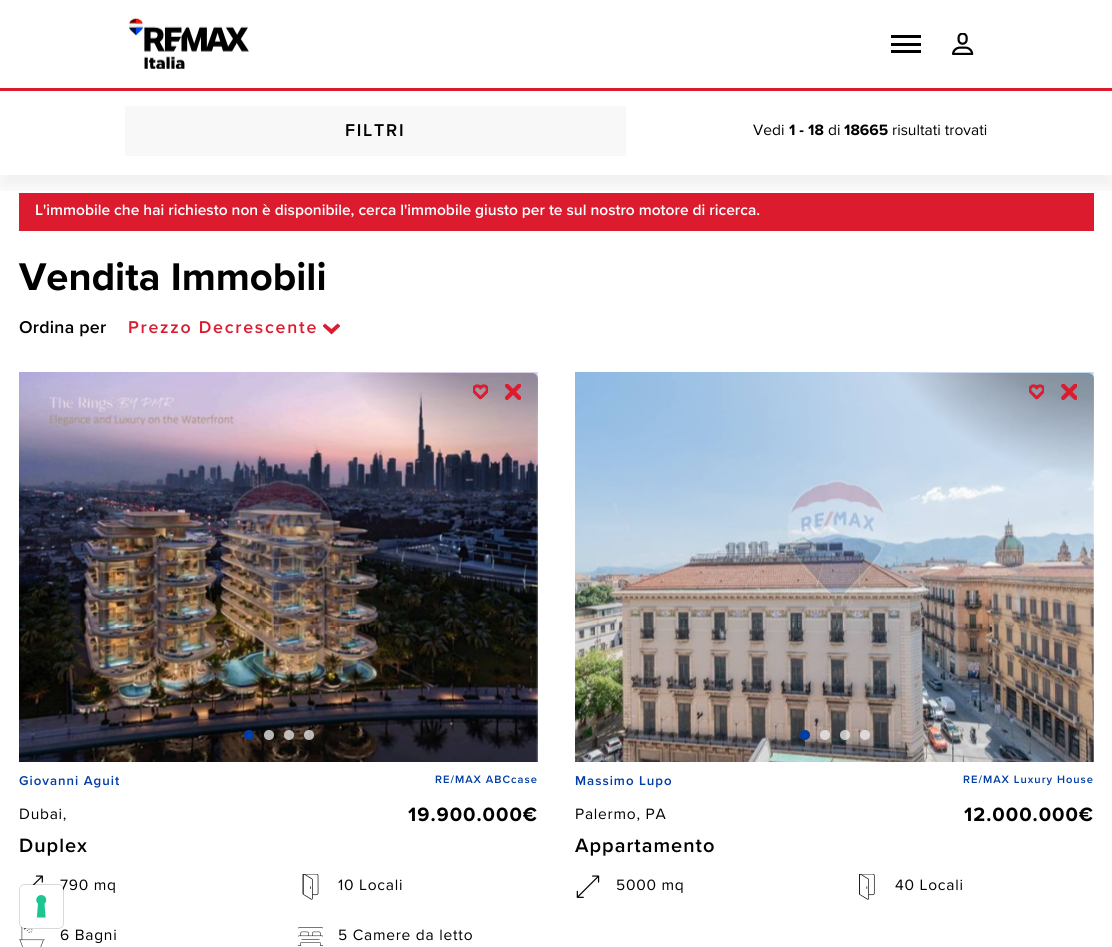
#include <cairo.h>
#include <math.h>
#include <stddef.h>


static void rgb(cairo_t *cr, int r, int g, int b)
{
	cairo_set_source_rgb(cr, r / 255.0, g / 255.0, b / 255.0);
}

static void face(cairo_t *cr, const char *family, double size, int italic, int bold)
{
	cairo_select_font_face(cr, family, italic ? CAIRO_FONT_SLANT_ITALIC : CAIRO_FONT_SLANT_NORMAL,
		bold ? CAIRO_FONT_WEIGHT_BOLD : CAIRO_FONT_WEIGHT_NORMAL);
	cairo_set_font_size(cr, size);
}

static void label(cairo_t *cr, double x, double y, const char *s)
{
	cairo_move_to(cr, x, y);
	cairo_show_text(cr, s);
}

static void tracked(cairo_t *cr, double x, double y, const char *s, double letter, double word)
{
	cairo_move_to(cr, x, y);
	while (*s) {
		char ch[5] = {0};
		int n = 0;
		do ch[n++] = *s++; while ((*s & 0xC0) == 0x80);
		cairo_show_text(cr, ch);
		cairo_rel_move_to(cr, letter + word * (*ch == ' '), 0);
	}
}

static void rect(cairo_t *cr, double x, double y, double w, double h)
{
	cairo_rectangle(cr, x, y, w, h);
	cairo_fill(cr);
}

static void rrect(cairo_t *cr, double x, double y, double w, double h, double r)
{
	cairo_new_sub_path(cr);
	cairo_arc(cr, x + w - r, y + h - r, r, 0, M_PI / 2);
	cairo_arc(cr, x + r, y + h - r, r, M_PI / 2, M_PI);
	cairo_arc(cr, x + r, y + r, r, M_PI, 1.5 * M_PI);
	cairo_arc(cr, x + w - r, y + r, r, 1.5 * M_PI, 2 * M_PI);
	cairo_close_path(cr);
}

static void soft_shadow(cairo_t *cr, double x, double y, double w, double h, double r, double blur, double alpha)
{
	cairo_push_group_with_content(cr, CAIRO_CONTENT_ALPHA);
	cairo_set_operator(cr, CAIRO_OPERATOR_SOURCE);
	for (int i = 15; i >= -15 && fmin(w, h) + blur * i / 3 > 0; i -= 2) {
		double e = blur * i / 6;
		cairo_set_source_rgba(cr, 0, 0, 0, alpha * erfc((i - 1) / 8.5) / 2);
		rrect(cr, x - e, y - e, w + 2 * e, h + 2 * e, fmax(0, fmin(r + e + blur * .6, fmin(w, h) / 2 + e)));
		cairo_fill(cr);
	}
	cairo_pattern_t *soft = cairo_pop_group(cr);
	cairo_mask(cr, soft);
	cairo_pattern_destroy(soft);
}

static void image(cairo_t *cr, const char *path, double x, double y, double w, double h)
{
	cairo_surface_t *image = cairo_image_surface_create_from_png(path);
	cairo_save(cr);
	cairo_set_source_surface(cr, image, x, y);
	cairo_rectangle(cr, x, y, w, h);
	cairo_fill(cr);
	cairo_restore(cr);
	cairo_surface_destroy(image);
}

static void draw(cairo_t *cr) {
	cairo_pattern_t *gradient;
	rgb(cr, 255, 255, 255);
	cairo_paint(cr);
	image(cr, "image0.png", 129, 18, 120, 51);
	rgb(cr, 0, 0, 0);
	rect(cr, 891, 50, 30, 3);
	rect(cr, 891, 35, 30, 3);
	rect(cr, 891, 43, 30, 3);
	image(cr, "image1.png", 952, 33, 22, 22);
	rgb(cr, 220, 28, 46);
	rect(cr, 19, 193, 1075, 38);
	cairo_save(cr);
	cairo_rectangle(cr, 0, 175, 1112, 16);
	cairo_clip(cr);
	rgb(cr, 0, 0, 0);
	soft_shadow(cr, 0, 100, 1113, 88, 0, 7.5, 0.06);
	cairo_restore(cr);
	rect(cr, 0, 88, 1112, 3);
	rgb(cr, 248, 248, 248);
	rect(cr, 125, 106, 501, 50);
	face(cr, "Proxima Nova", 17.75, 0, 0);
	rgb(cr, 0, 0, 0);
	tracked(cr, 345, 136, "FILTRI", 1.75, 0);
	face(cr, "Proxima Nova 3", 15.55, 0, 0);
	label(cr, 753, 135, "Vedi");
	face(cr, "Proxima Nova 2", 15.55, 0, 0);
	label(cr, 789, 135, "1 - 18");
	face(cr, "Proxima Nova 3", 15.55, 0, 0);
	label(cr, 828, 135, "di");
	face(cr, "Proxima Nova 2", 15.55, 0, 0);
	label(cr, 844, 135, "18665");
	face(cr, "Proxima Nova 3", 15.55, 0, 0);
	label(cr, 892, 135, "risultati trovati");
	face(cr, "Proxima Nova", 15.55, 0, 0);
	rgb(cr, 255, 255, 255);
	label(cr, 35, 215, "L'immobile che hai richiesto non è disponibile, cerca l'immobile giusto per te sul nostro motore di ricerca.");
	face(cr, "Proxima Nova 2", 40, 0, 0);
	rgb(cr, 0, 0, 0);
	label(cr, 19, 290, "Vendita Immobili");
	face(cr, "Proxima Nova", 17.75, 0, 0);
	tracked(cr, 19, 333, "Ordina per", 0.25, 0);
	rgb(cr, 220, 28, 46);
	tracked(cr, 128, 333, "Prezzo Decrescente", 1.75, 0);
	cairo_save(cr);
	cairo_rectangle(cr, 323, 320, 17, 18);
	cairo_clip(cr);
	cairo_new_path(cr);
	cairo_move_to(cr, 331.5, 329);
	cairo_line_to(cr, 325, 323.5);
	cairo_line_to(cr, 322.5, 326);
	cairo_line_to(cr, 331.5, 334.5);
	cairo_line_to(cr, 340.5, 326);
	cairo_line_to(cr, 337.5, 323.5);
	cairo_close_path(cr);
	cairo_fill(cr);
	cairo_restore(cr);
	image(cr, "image2.png", 19, 372, 519, 390);
	rgb(cr, 0, 61, 165);
	cairo_arc(cr, 249, 735, 5, 0, 2 * M_PI);
	cairo_fill(cr);
	cairo_set_source_rgba(cr, 0.937, 0.937, 0.937, 0.75);
	cairo_arc(cr, 269, 735, 5, 0, 2 * M_PI);
	cairo_fill(cr);
	cairo_arc(cr, 289, 735, 5, 0, 2 * M_PI);
	cairo_fill(cr);
	cairo_arc(cr, 309, 735, 5, 0, 2 * M_PI);
	cairo_fill(cr);
	gradient = cairo_pattern_create_radial(0, 0, 0, 0, 0, 1);
	cairo_pattern_set_matrix(gradient, &(cairo_matrix_t){1.0 / 734, 0, 0, 1.0 / 800, -1.0 * 538 / 734, -1.0 * 197 / 800});
	cairo_pattern_add_color_stop_rgba(gradient, 0, 0, 0, 0, 0.6);
	cairo_pattern_add_color_stop_rgba(gradient, 0.25, 0, 0, 0, 0.3);
	cairo_pattern_add_color_stop_rgba(gradient, 0.35, 0, 0, 0, 0);
	cairo_set_source(cr, gradient);
	cairo_pattern_destroy(gradient);
	rrect(cr, 19, 373, 519, 390, 6);
	cairo_fill(cr);
	image(cr, "image3.png", 473, 384, 15, 16);
	image(cr, "image4.png", 505, 384, 16, 16);
	face(cr, "Proxima Nova", 13.25, 0, 0);
	rgb(cr, 0, 61, 165);
	tracked(cr, 19, 785, "Giovanni Aguit", 1, 0);
	face(cr, "Proxima Nova", 11.1, 0, 0);
	tracked(cr, 435, 783, "RE/MAX ABCcase", 1, 0);
	face(cr, "Proxima Nova 3", 15.55, 0, 0);
	rgb(cr, 0, 0, 0);
	tracked(cr, 19, 819, "Dubai,", 0.75, 0);
	face(cr, "Proxima Nova 2", 20, 0, 0);
	tracked(cr, 408, 821, "19.900.000€", 1, 0);
	face(cr, "Proxima Nova", 20, 0, 0);
	tracked(cr, 19, 852, "Duplex", 1, 0);
	image(cr, "image5.png", 32, 875, 11, 10);
	face(cr, "Proxima Nova 3", 15.55, 0, 0);
	tracked(cr, 60, 890, "790 mq", 0.75, 0);
	image(cr, "image6.png", 302, 874, 17, 26);
	tracked(cr, 338, 890, "10 Locali", 0.75, 0);
	image(cr, "image7.png", 19, 926, 26, 21);
	tracked(cr, 60, 940, "6 Bagni", 0.75, 0);
	image(cr, "image8.png", 298, 927, 25, 19);
	tracked(cr, 338, 940, "5 Camere da letto", 0.75, 0);
	image(cr, "image9.png", 575, 372, 519, 390);
	rgb(cr, 0, 61, 165);
	cairo_arc(cr, 805, 735, 5, 0, 2 * M_PI);
	cairo_fill(cr);
	cairo_set_source_rgba(cr, 0.937, 0.937, 0.937, 0.75);
	cairo_arc(cr, 825, 735, 5, 0, 2 * M_PI);
	cairo_fill(cr);
	cairo_arc(cr, 845, 735, 5, 0, 2 * M_PI);
	cairo_fill(cr);
	cairo_arc(cr, 865, 735, 5, 0, 2 * M_PI);
	cairo_fill(cr);
	gradient = cairo_pattern_create_radial(0, 0, 0, 0, 0, 1);
	cairo_pattern_set_matrix(gradient, &(cairo_matrix_t){1.0 / 734, 0, 0, 1.0 / 800, -1.0 * 1094 / 734, -1.0 * 197 / 800});
	cairo_pattern_add_color_stop_rgba(gradient, 0, 0, 0, 0, 0.6);
	cairo_pattern_add_color_stop_rgba(gradient, 0.25, 0, 0, 0, 0.3);
	cairo_pattern_add_color_stop_rgba(gradient, 0.35, 0, 0, 0, 0);
	cairo_set_source(cr, gradient);
	cairo_pattern_destroy(gradient);
	rrect(cr, 575, 373, 519, 390, 6);
	cairo_fill(cr);
	image(cr, "image10.png", 1029, 384, 15, 16);
	image(cr, "image11.png", 1061, 384, 16, 16);
	face(cr, "Proxima Nova", 13.25, 0, 0);
	rgb(cr, 0, 61, 165);
	tracked(cr, 575, 785, "Massimo Lupo", 1, 0);
	face(cr, "Proxima Nova", 11.1, 0, 0);
	tracked(cr, 963, 783, "RE/MAX Luxury House", 1, 0);
	face(cr, "Proxima Nova 3", 15.55, 0, 0);
	rgb(cr, 0, 0, 0);
	tracked(cr, 575, 819, "Palermo, PA", 0.75, 0);
	face(cr, "Proxima Nova 2", 20, 0, 0);
	tracked(cr, 964, 821, "12.000.000€", 1, 0);
	face(cr, "Proxima Nova", 20, 0, 0);
	tracked(cr, 575, 852, "Appartamento", 1, 0);
	image(cr, "image12.png", 576, 875, 24, 23);
	face(cr, "Proxima Nova 3", 15.55, 0, 0);
	tracked(cr, 616, 890, "5000 mq", 0.75, 0);
	image(cr, "image13.png", 859, 874, 16, 26);
	tracked(cr, 895, 890, "40 Locali", 0.75, 0);
	rrect(cr, 19.5, 884.5, 44, 44, 5.5);
	cairo_set_source_rgba(cr, 0, 0, 0, 0.15);
	cairo_set_line_width(cr, 1);
	cairo_stroke(cr);
	rgb(cr, 255, 255, 255);
	rrect(cr, 20, 885, 43, 43, 5);
	cairo_fill(cr);
	image(cr, "image14.png", 36, 895, 11, 23);
}

int main(void) {
	cairo_surface_t *surface = cairo_image_surface_create(CAIRO_FORMAT_RGB24, 1112, 947);
	cairo_t *cr = cairo_create(surface);
	cairo_font_options_t *options = cairo_font_options_create();
	cairo_font_options_set_hint_metrics(options, CAIRO_HINT_METRICS_OFF);
	cairo_font_options_set_hint_style(options, CAIRO_HINT_STYLE_NONE);
	cairo_set_font_options(cr, options);
	cairo_set_miter_limit(cr, 4);
	draw(cr);
	cairo_surface_write_to_png(surface, "render.png");
	cairo_font_options_destroy(options);
	cairo_destroy(cr);
	cairo_surface_destroy(surface);
	return 0;
}
